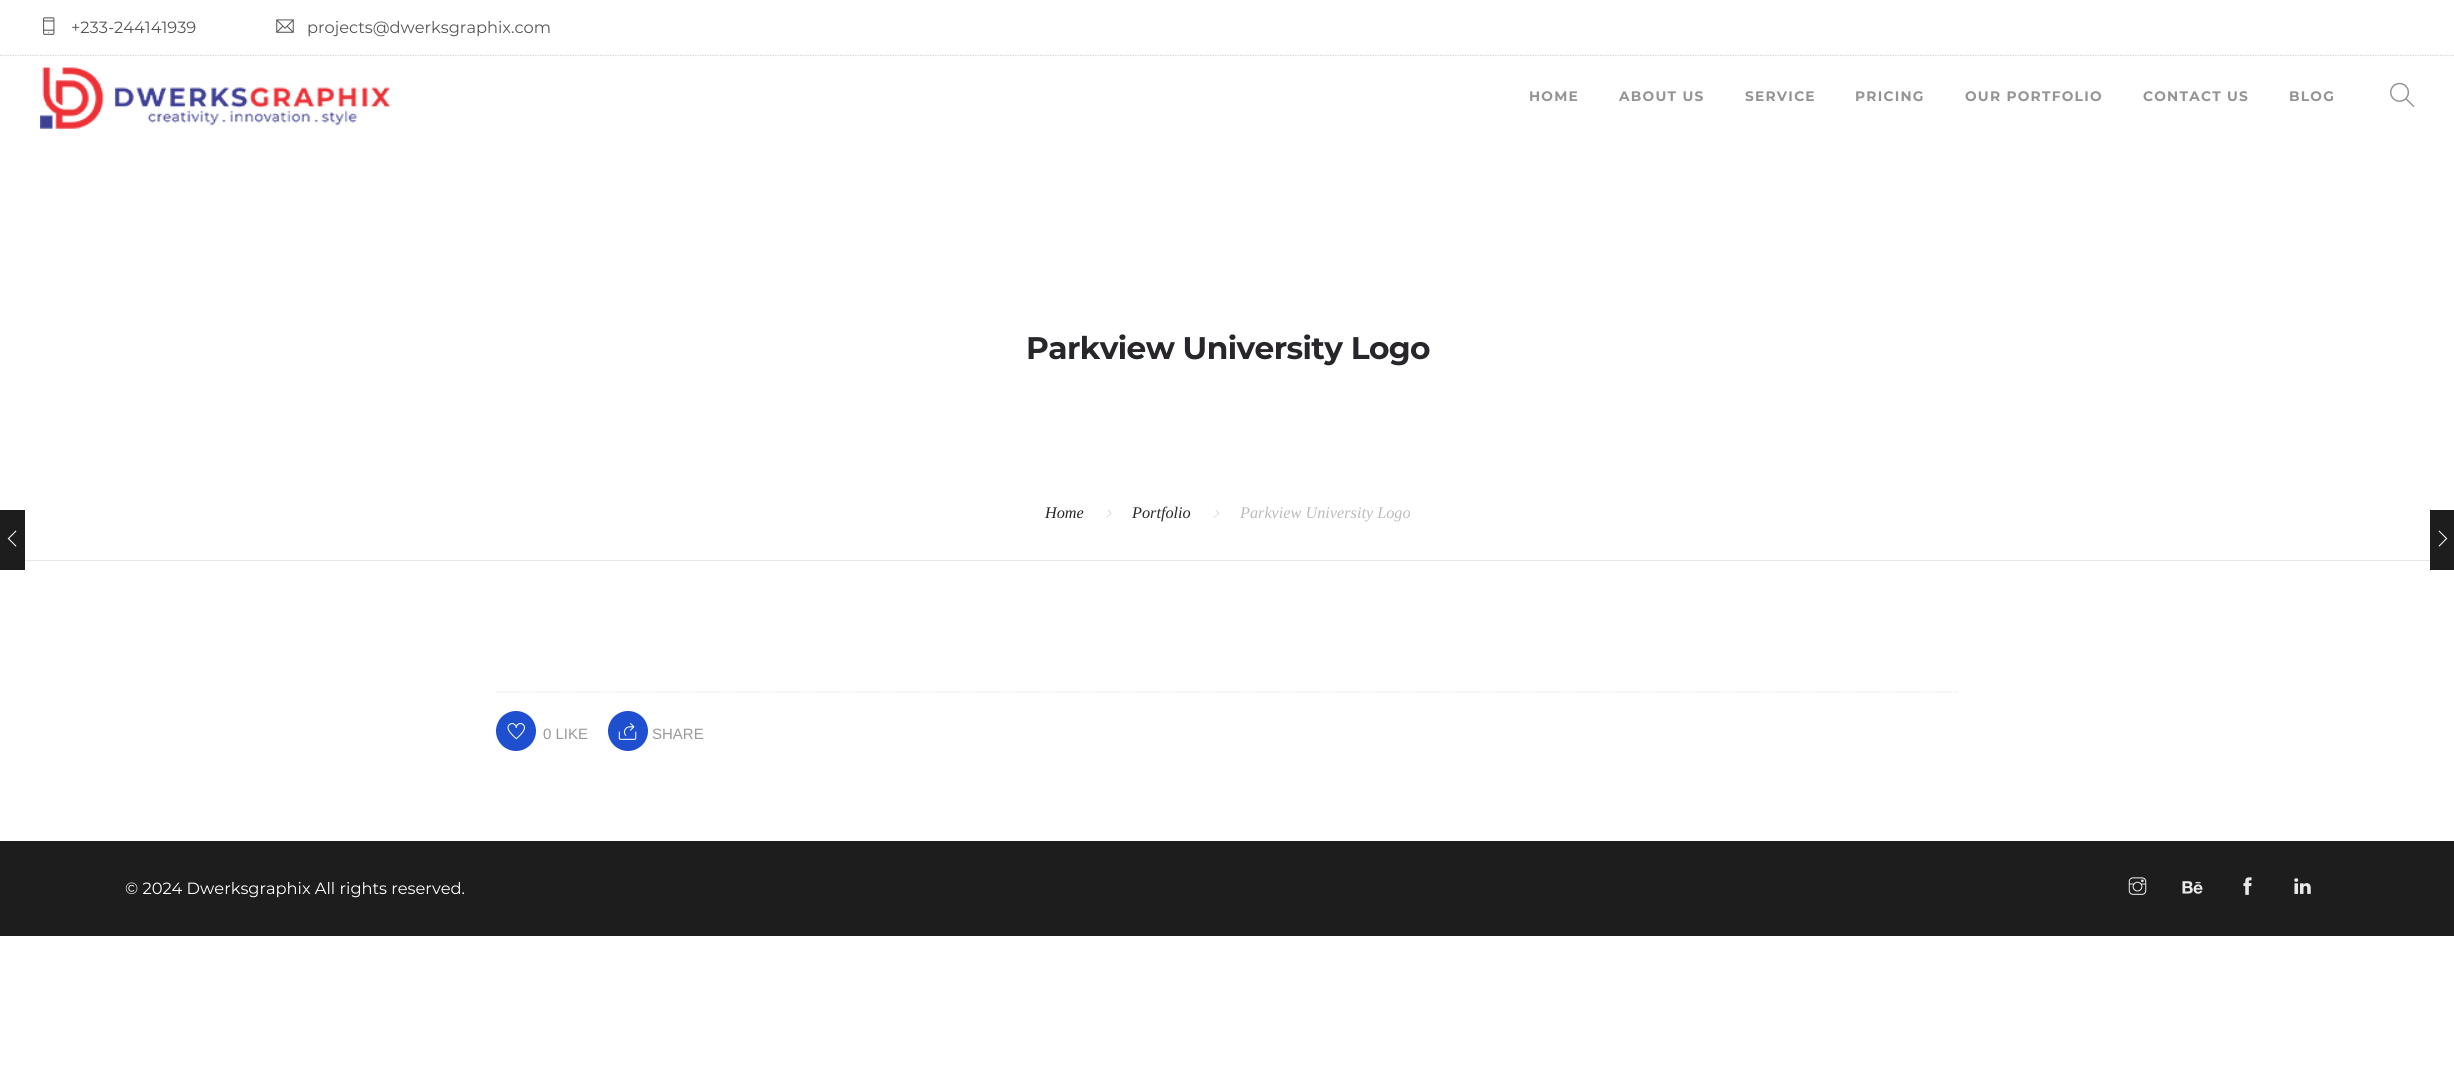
#include <cairo.h>
#include <math.h>
#include <stddef.h>


static void rgb(cairo_t *cr, int r, int g, int b)
{
	cairo_set_source_rgb(cr, r / 255.0, g / 255.0, b / 255.0);
}

static void face(cairo_t *cr, const char *family, double size, int italic, int bold)
{
	cairo_select_font_face(cr, family, italic ? CAIRO_FONT_SLANT_ITALIC : CAIRO_FONT_SLANT_NORMAL,
		bold ? CAIRO_FONT_WEIGHT_BOLD : CAIRO_FONT_WEIGHT_NORMAL);
	cairo_set_font_size(cr, size);
}

static void label(cairo_t *cr, double x, double y, const char *s)
{
	cairo_move_to(cr, x, y);
	cairo_show_text(cr, s);
}

static void tracked(cairo_t *cr, double x, double y, const char *s, double letter, double word)
{
	cairo_move_to(cr, x, y);
	while (*s) {
		char ch[5] = {0};
		int n = 0;
		do ch[n++] = *s++; while ((*s & 0xC0) == 0x80);
		cairo_show_text(cr, ch);
		cairo_rel_move_to(cr, letter + word * (*ch == ' '), 0);
	}
}

static void rect(cairo_t *cr, double x, double y, double w, double h)
{
	cairo_rectangle(cr, x, y, w, h);
	cairo_fill(cr);
}

static void image(cairo_t *cr, const char *path, double x, double y, double w, double h)
{
	cairo_surface_t *image = cairo_image_surface_create_from_png(path);
	cairo_save(cr);
	cairo_set_source_surface(cr, image, x, y);
	cairo_rectangle(cr, x, y, w, h);
	cairo_fill(cr);
	cairo_restore(cr);
	cairo_surface_destroy(image);
}

static void draw(cairo_t *cr) {
	rgb(cr, 255, 255, 255);
	cairo_paint(cr);
	cairo_new_path(cr);
	cairo_move_to(cr, 0, 55.5);
	cairo_line_to(cr, 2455, 55.5);
	rgb(cr, 212, 212, 213);
	cairo_set_line_width(cr, 1.2);
	cairo_set_dash(cr, (double[]){1.25, 1.25}, 2, 0);
	cairo_stroke(cr);
	image(cr, "image0.png", 43, 17, 12, 18);
	face(cr, "Montserrat", 16.25, 0, 0);
	rgb(cr, 86, 86, 86);
	label(cr, 71, 33, "+233-244141939");
	image(cr, "image1.png", 276, 19, 18, 14);
	label(cr, 307, 33, "projects@dwerksgraphix.com");
	image(cr, "image2.png", 40, 67, 350, 62);
	face(cr, "Montserrat", 13.75, 0, 1);
	rgb(cr, 148, 147, 149);
	tracked(cr, 1529, 101, "HOME", 1.25, 0);
	tracked(cr, 1619, 101, "ABOUT US", 1.25, 0);
	tracked(cr, 1745, 101, "SERVICE", 1.25, 0);
	tracked(cr, 1855, 101, "PRICING", 1.25, 0);
	tracked(cr, 1965, 101, "OUR PORTFOLIO", 1.25, 0);
	tracked(cr, 2143, 101, "CONTACT US", 1.25, 0);
	tracked(cr, 2289, 101, "BLOG", 1.25, 0);
	image(cr, "image3.png", 2390, 82, 25, 25);
	rgb(cr, 232, 232, 232);
	rect(cr, 25, 560, 2405, 1);
	face(cr, "Montserrat", 31.25, 0, 1);
	rgb(cr, 40, 38, 43);
	tracked(cr, 1026, 359, "Parkview University Logo", -0.6, 0);
	face(cr, "Liberation Serif", 16.25, 1, 0);
	label(cr, 1045, 518, "Home");
	image(cr, "image4.png", 1106, 509, 6, 9);
	label(cr, 1132, 518, "Portfolio");
	image(cr, "image5.png", 1213, 509, 6, 9);
	rgb(cr, 188, 188, 188);
	label(cr, 1240, 518, "Parkview University Logo");
	rgb(cr, 29, 29, 29);
	rect(cr, 0, 510, 25, 60);
	image(cr, "image6.png", 7, 530, 10, 17);
	rect(cr, 2430, 510, 24, 60);
	image(cr, "image7.png", 2438, 530, 10, 17);
	cairo_new_path(cr);
	cairo_move_to(cr, 496, 692);
	cairo_line_to(cr, 1959, 692);
	rgb(cr, 232, 232, 232);
	cairo_stroke(cr);
	rgb(cr, 30, 79, 207);
	cairo_arc(cr, 516, 731, 20, 0, 2 * M_PI);
	cairo_fill(cr);
	image(cr, "image8.png", 507, 723, 18, 17);
	face(cr, "Liberation Sans", 15, 0, 0);
	rgb(cr, 153, 153, 153);
	label(cr, 543, 739, "0 LIKE");
	rgb(cr, 30, 79, 207);
	cairo_new_path(cr);
	cairo_arc(cr, 628, 731, 20, 0, 2 * M_PI);
	cairo_fill(cr);
	image(cr, "image9.png", 618, 723, 19, 17);
	rgb(cr, 153, 153, 153);
	label(cr, 652, 739, "SHARE");
	rgb(cr, 29, 29, 29);
	rect(cr, 0, 841, 2454, 95);
	face(cr, "Montserrat", 16.25, 0, 0);
	rgb(cr, 255, 255, 255);
	label(cr, 125, 894, "© 2024 Dwerksgraphix All rights reserved.");
	image(cr, "image10.png", 2128, 877, 19, 18);
	image(cr, "image11.png", 2182, 881, 21, 13);
	image(cr, "image12.png", 2243, 877, 9, 18);
	image(cr, "image13.png", 2294, 878, 17, 16);
}

int main(void) {
	cairo_surface_t *surface = cairo_image_surface_create(CAIRO_FORMAT_RGB24, 2454, 1079);
	cairo_t *cr = cairo_create(surface);
	cairo_font_options_t *options = cairo_font_options_create();
	cairo_font_options_set_hint_metrics(options, CAIRO_HINT_METRICS_OFF);
	cairo_font_options_set_hint_style(options, CAIRO_HINT_STYLE_NONE);
	cairo_set_font_options(cr, options);
	cairo_set_miter_limit(cr, 4);
	draw(cr);
	cairo_surface_write_to_png(surface, "render.png");
	cairo_font_options_destroy(options);
	cairo_destroy(cr);
	cairo_surface_destroy(surface);
	return 0;
}
